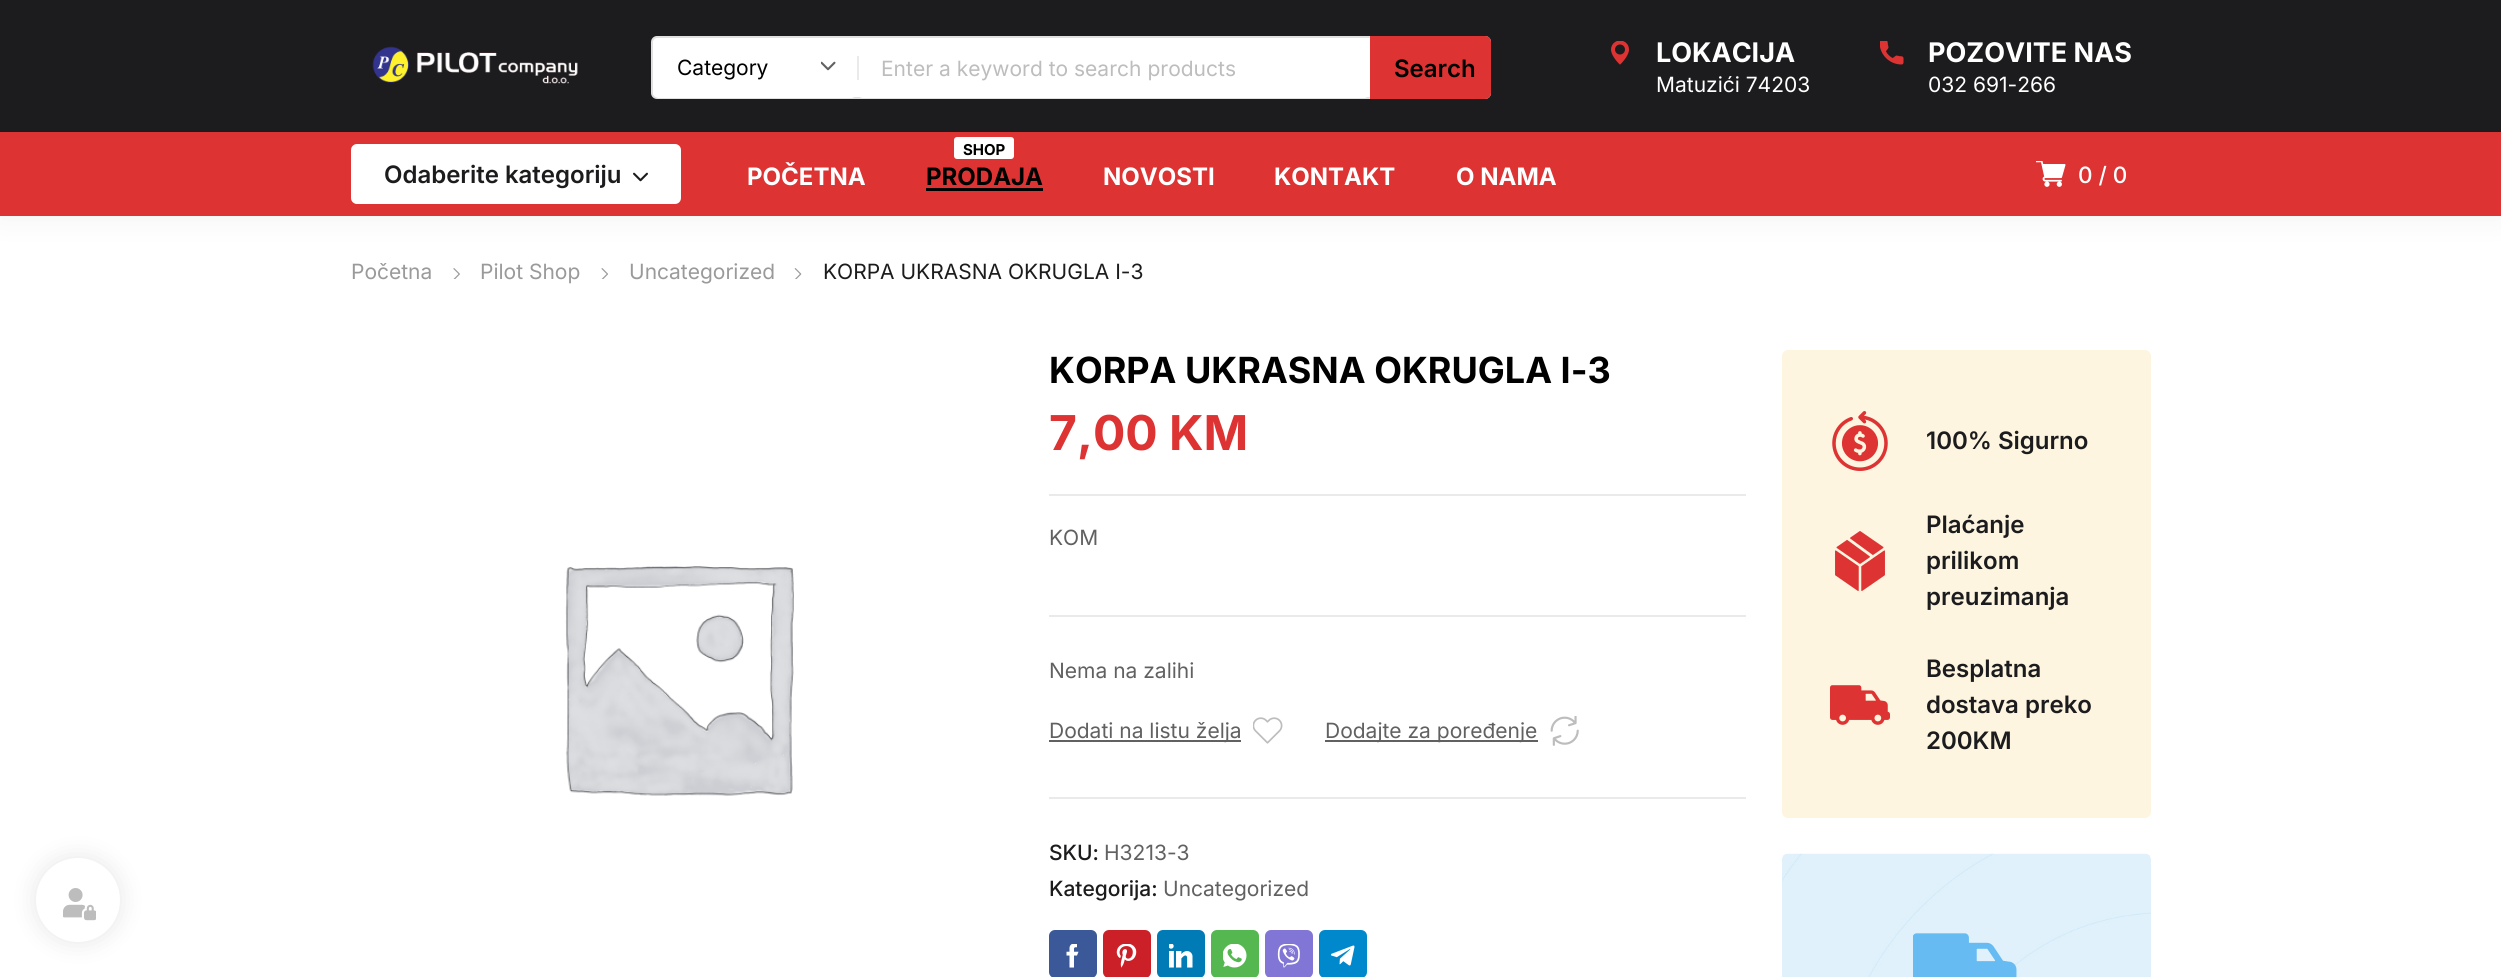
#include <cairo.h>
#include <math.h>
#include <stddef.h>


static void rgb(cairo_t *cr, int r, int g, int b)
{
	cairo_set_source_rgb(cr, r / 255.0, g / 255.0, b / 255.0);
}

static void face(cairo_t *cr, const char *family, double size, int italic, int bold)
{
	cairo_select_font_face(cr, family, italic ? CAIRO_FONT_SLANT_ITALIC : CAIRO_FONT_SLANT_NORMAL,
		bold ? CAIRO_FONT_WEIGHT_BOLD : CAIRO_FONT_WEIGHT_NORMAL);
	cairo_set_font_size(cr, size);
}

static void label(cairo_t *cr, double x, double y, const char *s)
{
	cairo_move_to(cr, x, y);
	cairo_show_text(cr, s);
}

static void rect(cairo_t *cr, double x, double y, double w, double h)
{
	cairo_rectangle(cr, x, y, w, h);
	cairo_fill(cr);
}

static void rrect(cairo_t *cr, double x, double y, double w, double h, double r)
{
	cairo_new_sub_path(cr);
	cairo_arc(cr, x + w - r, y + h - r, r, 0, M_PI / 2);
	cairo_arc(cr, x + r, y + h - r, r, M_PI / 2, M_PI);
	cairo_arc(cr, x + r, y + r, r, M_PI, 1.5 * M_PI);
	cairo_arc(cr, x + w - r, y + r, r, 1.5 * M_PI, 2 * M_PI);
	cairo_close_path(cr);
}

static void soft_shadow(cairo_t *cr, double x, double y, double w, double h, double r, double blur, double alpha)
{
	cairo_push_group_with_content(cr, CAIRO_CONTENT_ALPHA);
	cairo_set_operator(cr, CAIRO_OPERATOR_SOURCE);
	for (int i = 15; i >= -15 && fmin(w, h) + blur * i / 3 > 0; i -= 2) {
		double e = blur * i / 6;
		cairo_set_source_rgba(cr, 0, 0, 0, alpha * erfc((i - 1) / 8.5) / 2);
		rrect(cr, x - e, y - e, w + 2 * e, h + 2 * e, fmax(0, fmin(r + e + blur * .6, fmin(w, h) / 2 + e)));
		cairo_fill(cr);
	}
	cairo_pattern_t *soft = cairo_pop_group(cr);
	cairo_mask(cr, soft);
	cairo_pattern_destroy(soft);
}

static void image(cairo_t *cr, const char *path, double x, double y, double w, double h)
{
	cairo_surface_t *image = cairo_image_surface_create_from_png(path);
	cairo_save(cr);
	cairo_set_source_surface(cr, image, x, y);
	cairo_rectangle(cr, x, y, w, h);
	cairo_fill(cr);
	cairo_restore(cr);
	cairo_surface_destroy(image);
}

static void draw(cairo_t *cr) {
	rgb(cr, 255, 255, 255);
	cairo_paint(cr);
	rgb(cr, 0, 0, 0);
	soft_shadow(cr, 0, 3, 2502, 216, 0, 15, 0.05);
	rgb(cr, 28, 28, 30);
	rect(cr, 0, 0, 2501, 132);
	image(cr, "image0.png", 372, 46, 206, 38);
	rgb(cr, 255, 255, 255);
	rrect(cr, 652, 37, 838, 61, 5);
	cairo_fill_preserve(cr);
	rgb(cr, 224, 224, 224);
	cairo_stroke(cr);
	rgb(cr, 255, 255, 255);
	rrect(cr, 653, 38, 204, 60, 6);
	cairo_fill(cr);
	image(cr, "image1.png", 821, 61, 15, 10);
	face(cr, "Inter", 21, 0, 0);
	rgb(cr, 0, 0, 0);
	label(cr, 677, 75, "Category");
	rgb(cr, 221, 51, 51);
	cairo_new_path(cr);
	cairo_move_to(cr, 1370, 36);
	cairo_line_to(cr, 1485, 36);
	cairo_curve_to(cr, 1488.5, 36, 1491, 38.5, 1491, 42);
	cairo_line_to(cr, 1491, 93);
	cairo_curve_to(cr, 1491, 96.5, 1488.5, 99, 1485, 99);
	cairo_line_to(cr, 1370, 99);
	cairo_close_path(cr);
	cairo_fill(cr);
	rgb(cr, 255, 255, 255);
	rrect(cr, 857, 38, 513, 60, 6);
	cairo_fill(cr);
	rgb(cr, 234, 234, 234);
	rect(cr, 857, 56, 2, 24);
	rgb(cr, 189, 189, 189);
	label(cr, 881, 76, "Enter a keyword to search products");
	face(cr, "Inter SemiBold", 24, 0, 0);
	rgb(cr, 0, 0, 0);
	label(cr, 1394, 77, "Search");
	image(cr, "image2.png", 1611, 41, 18, 24);
	face(cr, "Inter", 27, 0, 1);
	rgb(cr, 255, 255, 255);
	label(cr, 1656, 62, "LOKACIJA");
	face(cr, "Inter", 21, 0, 0);
	label(cr, 1656, 92, "Matuzići 74203");
	image(cr, "image3.png", 1880, 41, 24, 24);
	face(cr, "Inter", 27, 0, 1);
	label(cr, 1928, 62, "POZOVITE NAS");
	face(cr, "Inter", 21, 0, 0);
	label(cr, 1928, 92, "032 691-266");
	rgb(cr, 221, 51, 51);
	rect(cr, 0, 132, 2501, 84);
	rgb(cr, 255, 255, 255);
	rrect(cr, 351, 144, 330, 60, 6);
	cairo_fill(cr);
	face(cr, "Inter SemiBold", 24, 0, 0);
	rgb(cr, 28, 28, 30);
	label(cr, 384, 183, "Odaberite kategoriju");
	image(cr, "image4.png", 633, 172, 15, 10);
	face(cr, "Inter", 24, 0, 1);
	rgb(cr, 255, 255, 255);
	label(cr, 747, 185, "POČETNA");
	rrect(cr, 954, 137, 60, 22, 3);
	cairo_fill(cr);
	face(cr, "Inter", 15, 0, 1);
	rgb(cr, 0, 0, 0);
	label(cr, 963, 155, "SHOP");
	face(cr, "Inter", 24, 0, 1);
	label(cr, 926, 185, "PRODAJA");
	rect(cr, 926, 188, 117, 3);
	rgb(cr, 255, 255, 255);
	label(cr, 1103, 185, "NOVOSTI");
	label(cr, 1274, 185, "KONTAKT");
	label(cr, 1456, 185, "O NAMA");
	image(cr, "image5.png", 2036, 161, 30, 26);
	face(cr, "Inter Medium", 22.5, 0, 0);
	label(cr, 2078, 183, "0 / 0");
	rgb(cr, 0, 0, 0);
	soft_shadow(cr, 36, 858, 84, 84, 42, 12, 0.1);
	rgb(cr, 255, 255, 255);
	cairo_arc(cr, 78, 900, 42, 0, 2 * M_PI);
	cairo_fill(cr);
	image(cr, "image6.png", 63, 888, 33, 33);
	face(cr, "Inter", 21, 0, 0);
	rgb(cr, 154, 154, 154);
	label(cr, 351, 279, "Početna");
	image(cr, "image7.png", 453, 268, 7, 11);
	label(cr, 480, 279, "Pilot Shop");
	image(cr, "image8.png", 601, 268, 7, 11);
	label(cr, 629, 279, "Uncategorized");
	image(cr, "image9.png", 794, 268, 8, 11);
	rgb(cr, 28, 28, 30);
	label(cr, 823, 279, "KORPA UKRASNA OKRUGLA I-3");
	image(cr, "image10.png", 565, 566, 229, 230);
	face(cr, "Inter", 36, 0, 1);
	rgb(cr, 0, 0, 0);
	label(cr, 1049, 383, "KORPA UKRASNA OKRUGLA I-3");
	face(cr, "Inter", 48, 0, 1);
	rgb(cr, 221, 51, 51);
	label(cr, 1049, 450, "7,00 KM");
	rgb(cr, 234, 234, 234);
	rect(cr, 1049, 494, 697, 2);
	rect(cr, 1049, 615, 697, 2);
	face(cr, "Inter", 21, 0, 0);
	rgb(cr, 97, 97, 97);
	label(cr, 1049, 545, "KOM");
	label(cr, 1049, 678, "Nema na zalihi");
	rect(cr, 1049, 740, 192, 2);
	label(cr, 1049, 738, "Dodati na listu želja");
	image(cr, "image11.png", 1253, 717, 30, 27);
	rect(cr, 1325, 740, 213, 2);
	label(cr, 1325, 738, "Dodajte za poređenje");
	image(cr, "image12.png", 1550, 716, 29, 30);
	rgb(cr, 234, 234, 234);
	rect(cr, 1049, 797, 697, 2);
	face(cr, "Inter Medium", 21, 0, 0);
	rgb(cr, 28, 28, 30);
	label(cr, 1049, 860, "SKU:");
	face(cr, "Inter", 21, 0, 0);
	rgb(cr, 97, 97, 97);
	label(cr, 1104, 860, "H3213-3");
	face(cr, "Inter Medium", 21, 0, 0);
	rgb(cr, 28, 28, 30);
	label(cr, 1049, 896, "Kategorija:");
	face(cr, "Inter", 21, 0, 0);
	rgb(cr, 97, 97, 97);
	label(cr, 1163, 896, "Uncategorized");
	rgb(cr, 59, 89, 152);
	rrect(cr, 1049, 930, 48, 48, 6);
	cairo_fill(cr);
	image(cr, "image13.png", 1066, 944, 13, 24);
	rgb(cr, 203, 32, 39);
	rrect(cr, 1103, 930, 48, 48, 6);
	cairo_fill(cr);
	image(cr, "image14.png", 1116, 944, 21, 24);
	rgb(cr, 0, 123, 182);
	rrect(cr, 1157, 930, 48, 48, 6);
	cairo_fill(cr);
	image(cr, "image15.png", 1169, 944, 24, 24);
	rgb(cr, 85, 183, 80);
	rrect(cr, 1211, 930, 48, 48, 6);
	cairo_fill(cr);
	image(cr, "image16.png", 1223, 944, 24, 24);
	rgb(cr, 129, 118, 214);
	rrect(cr, 1265, 930, 48, 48, 6);
	cairo_fill(cr);
	image(cr, "image17.png", 1277, 944, 23, 24);
	rgb(cr, 0, 136, 204);
	rrect(cr, 1319, 930, 48, 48, 6);
	cairo_fill(cr);
	image(cr, "image18.png", 1331, 945, 24, 21);
	rgb(cr, 253, 245, 224);
	rrect(cr, 1782, 350, 369, 468, 6);
	cairo_fill(cr);
	image(cr, "image19.png", 1832, 411, 56, 60);
	face(cr, "Inter SemiBold", 24, 0, 0);
	rgb(cr, 28, 28, 30);
	label(cr, 1926, 449, "100% Sigurno");
	image(cr, "image20.png", 1835, 531, 50, 60);
	label(cr, 1926, 533, "Plaćanje");
	label(cr, 1926, 569, "prilikom");
	label(cr, 1926, 605, "preuzimanja");
	image(cr, "image21.png", 1830, 685, 60, 40);
	label(cr, 1926, 677, "Besplatna");
	label(cr, 1926, 713, "dostava preko");
	label(cr, 1926, 749, "200KM");
	image(cr, "image22.png", 1782, 853, 369, 124);
	image(cr, "image23.png", 1913, 933, 104, 44);
}

int main(void) {
	cairo_surface_t *surface = cairo_image_surface_create(CAIRO_FORMAT_RGB24, 2501, 977);
	cairo_t *cr = cairo_create(surface);
	cairo_font_options_t *options = cairo_font_options_create();
	cairo_font_options_set_hint_metrics(options, CAIRO_HINT_METRICS_OFF);
	cairo_font_options_set_hint_style(options, CAIRO_HINT_STYLE_NONE);
	cairo_set_font_options(cr, options);
	cairo_set_miter_limit(cr, 4);
	draw(cr);
	cairo_surface_write_to_png(surface, "render.png");
	cairo_font_options_destroy(options);
	cairo_destroy(cr);
	cairo_surface_destroy(surface);
	return 0;
}
